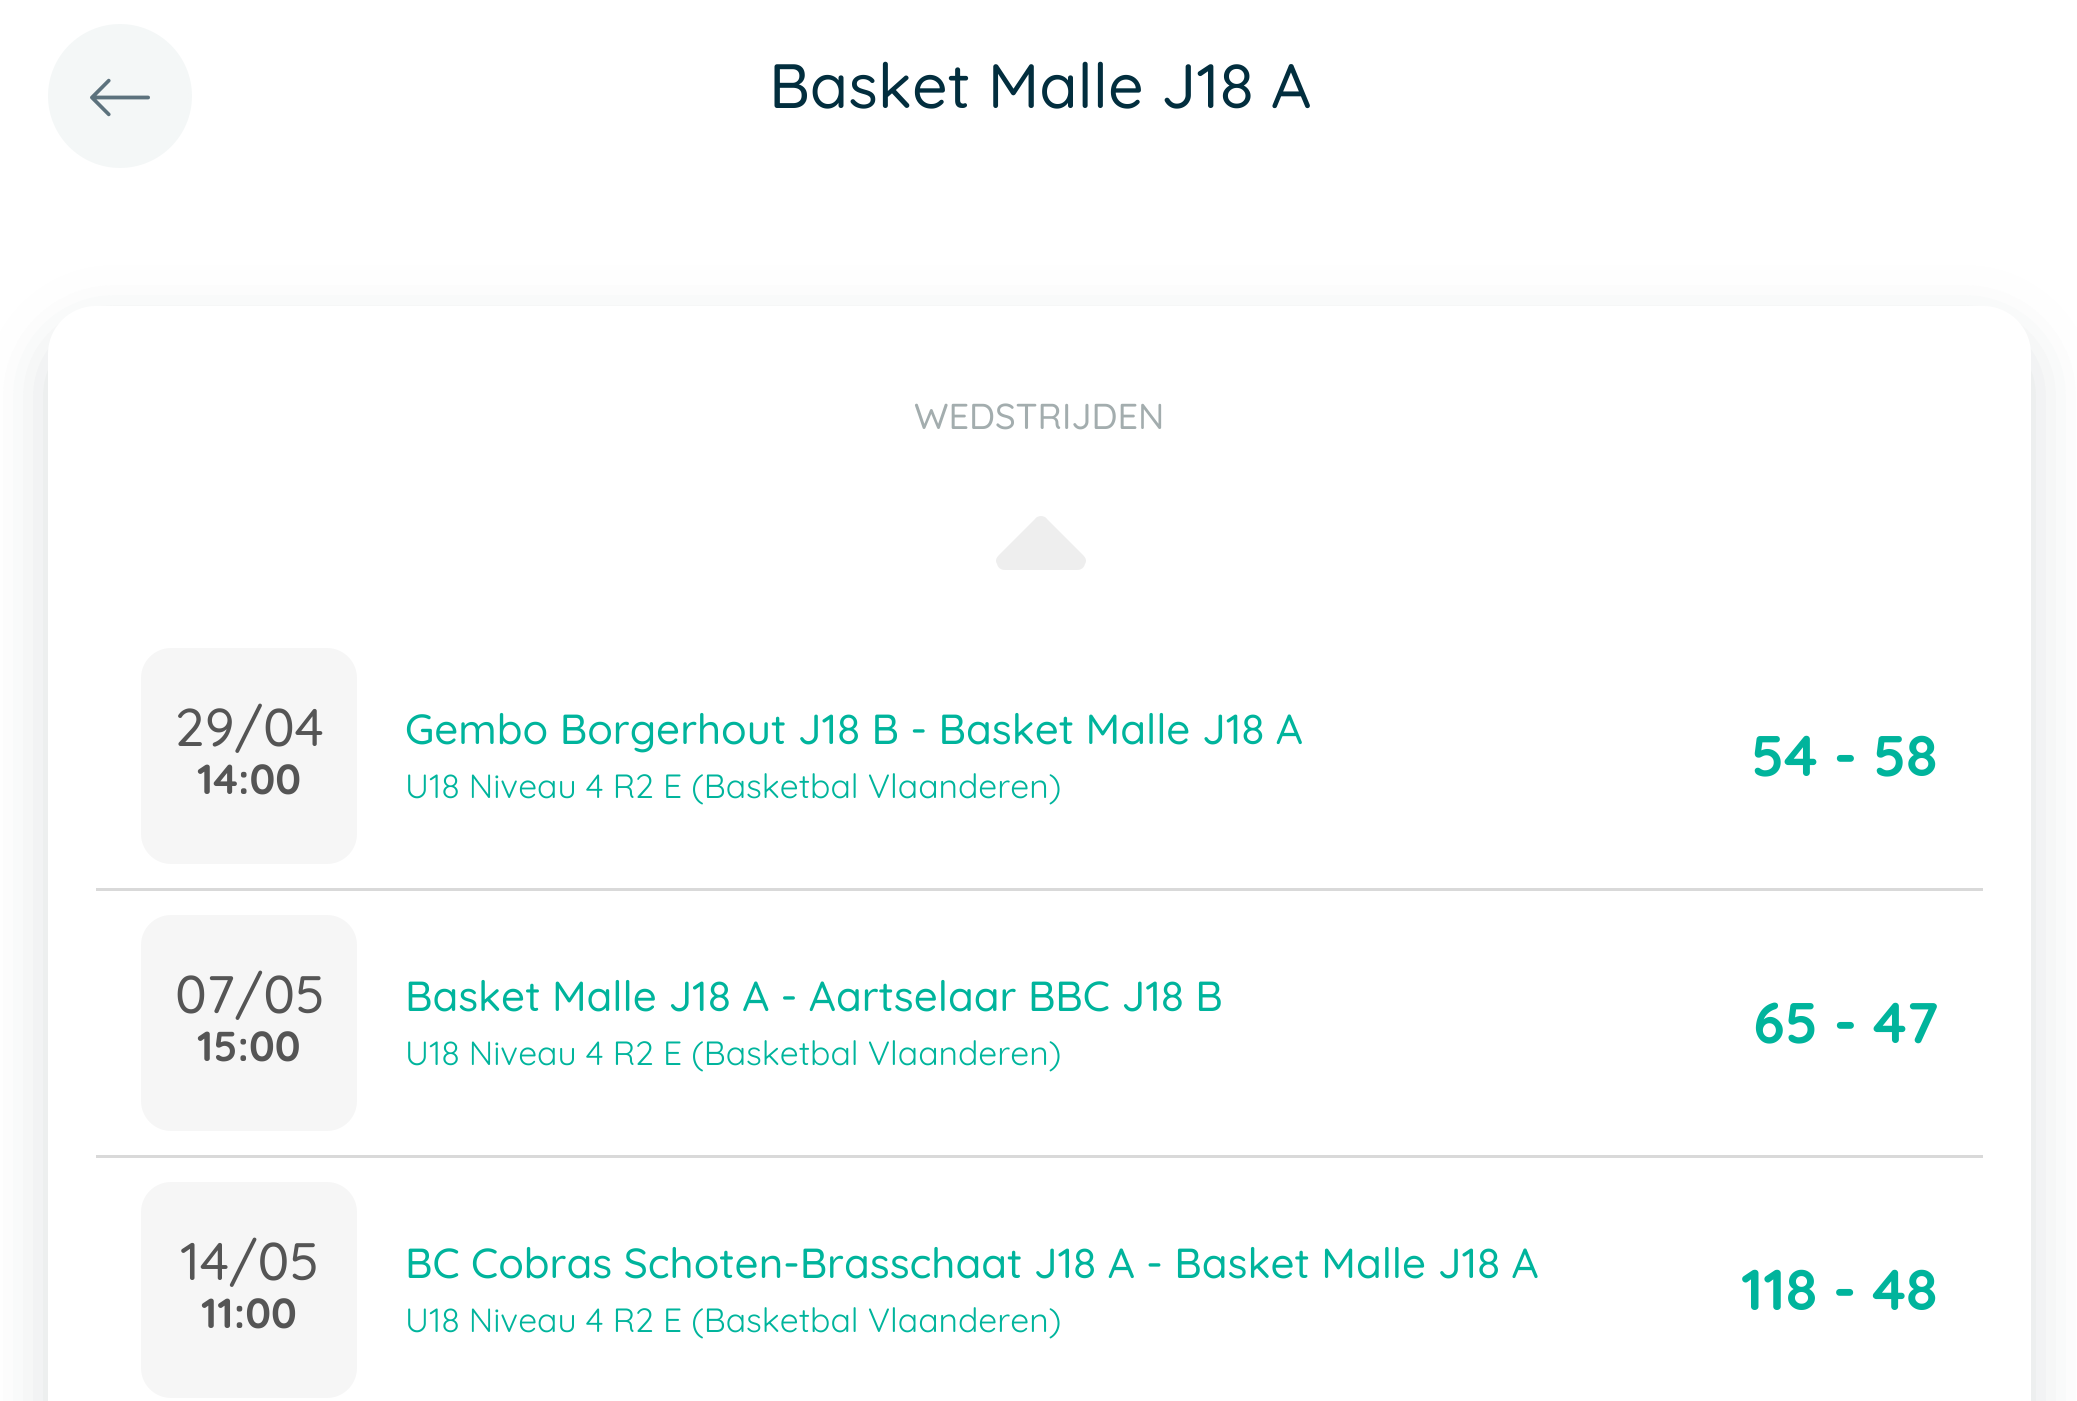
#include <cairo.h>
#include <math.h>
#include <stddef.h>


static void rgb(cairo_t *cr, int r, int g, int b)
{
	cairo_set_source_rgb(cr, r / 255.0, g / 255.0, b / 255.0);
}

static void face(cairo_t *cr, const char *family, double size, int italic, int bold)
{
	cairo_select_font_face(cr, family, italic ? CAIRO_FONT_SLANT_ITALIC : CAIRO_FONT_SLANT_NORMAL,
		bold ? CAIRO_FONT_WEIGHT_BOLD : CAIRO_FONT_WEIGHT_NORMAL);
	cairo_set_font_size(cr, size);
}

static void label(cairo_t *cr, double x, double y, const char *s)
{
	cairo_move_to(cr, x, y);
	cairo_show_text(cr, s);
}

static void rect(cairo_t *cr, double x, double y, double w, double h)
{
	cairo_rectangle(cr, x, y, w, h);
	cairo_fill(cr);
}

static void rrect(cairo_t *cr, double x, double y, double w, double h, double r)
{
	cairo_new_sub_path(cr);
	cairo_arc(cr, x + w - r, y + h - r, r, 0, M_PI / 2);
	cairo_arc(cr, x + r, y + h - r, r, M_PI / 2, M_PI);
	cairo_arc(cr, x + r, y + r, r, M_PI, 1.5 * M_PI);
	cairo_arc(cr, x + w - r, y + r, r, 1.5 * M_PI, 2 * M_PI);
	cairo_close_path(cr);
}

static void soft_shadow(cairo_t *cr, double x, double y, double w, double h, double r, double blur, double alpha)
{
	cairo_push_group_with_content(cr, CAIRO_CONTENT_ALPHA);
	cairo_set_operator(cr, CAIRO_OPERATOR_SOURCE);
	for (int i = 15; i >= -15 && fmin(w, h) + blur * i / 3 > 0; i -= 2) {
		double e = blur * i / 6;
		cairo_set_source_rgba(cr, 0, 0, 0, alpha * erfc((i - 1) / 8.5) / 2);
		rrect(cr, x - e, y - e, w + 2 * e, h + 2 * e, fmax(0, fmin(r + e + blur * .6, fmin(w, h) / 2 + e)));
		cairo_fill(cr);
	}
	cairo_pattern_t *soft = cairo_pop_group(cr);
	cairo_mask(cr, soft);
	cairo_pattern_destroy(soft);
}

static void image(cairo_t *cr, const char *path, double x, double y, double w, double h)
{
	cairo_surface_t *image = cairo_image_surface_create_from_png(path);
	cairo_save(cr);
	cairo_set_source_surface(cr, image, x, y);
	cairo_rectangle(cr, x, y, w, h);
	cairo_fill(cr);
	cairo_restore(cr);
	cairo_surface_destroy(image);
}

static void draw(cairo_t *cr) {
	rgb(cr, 255, 255, 255);
	cairo_paint(cr);
	rgb(cr, 244, 247, 247);
	cairo_arc(cr, 120, 96, 70.5, 0, 2 * M_PI);
	cairo_fill_preserve(cr);
	cairo_set_line_width(cr, 3);
	cairo_stroke(cr);
	image(cr, "image0.png", 90, 78, 60, 39);
	face(cr, "Quicksand Medium", 62.5, 0, 0);
	rgb(cr, 2, 46, 62);
	label(cr, 769, 108, "Basket Malle J18 A");
	rgb(cr, 71, 92, 93);
	soft_shadow(cr, 48, 330, 1983, 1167, 48, 30, 0.2);
	rgb(cr, 255, 255, 255);
	cairo_new_path(cr);
	cairo_move_to(cr, 96, 306);
	cairo_line_to(cr, 1983, 306);
	cairo_curve_to(cr, 2009.5, 306, 2031, 327.5, 2031, 354);
	cairo_line_to(cr, 2031, 1401);
	cairo_line_to(cr, 48, 1401);
	cairo_line_to(cr, 48, 354);
	cairo_curve_to(cr, 48, 327.5, 69.5, 306, 96, 306);
	cairo_close_path(cr);
	cairo_fill(cr);
	face(cr, "Quicksand Medium", 36, 0, 0);
	rgb(cr, 163, 173, 174);
	label(cr, 914, 429, "WEDSTRIJDEN");
	rgb(cr, 238, 238, 238);
	cairo_new_path(cr);
	cairo_move_to(cr, 1047, 519);
	cairo_curve_to(cr, 1046, 517, 1043, 516, 1041, 516);
	cairo_curve_to(cr, 1039, 516, 1036, 517, 1035, 519);
	cairo_line_to(cr, 999, 555);
	cairo_curve_to(cr, 996, 558, 995, 561, 997, 564);
	cairo_curve_to(cr, 998, 568, 1001, 570, 1005, 570);
	cairo_line_to(cr, 1077, 570);
	cairo_curve_to(cr, 1081, 570, 1084, 568, 1085, 564);
	cairo_curve_to(cr, 1087, 561, 1086, 558, 1083, 555);
	cairo_close_path(cr);
	cairo_fill(cr);
	rgb(cr, 217, 217, 217);
	rect(cr, 96, 888, 1887, 3);
	rgb(cr, 246, 246, 246);
	rrect(cr, 141, 648, 216, 216, 30);
	cairo_fill(cr);
	face(cr, "Quicksand Medium", 53, 0, 0);
	rgb(cr, 85, 85, 85);
	label(cr, 175, 746, "29/04");
	face(cr, "Quicksand", 42, 0, 1);
	label(cr, 197, 794, "14:00");
	face(cr, "Quicksand Medium", 42, 0, 0);
	rgb(cr, 0, 180, 156);
	label(cr, 405, 744, "Gembo Borgerhout J18 B - Basket Malle J18 A");
	face(cr, "Quicksand", 33.6, 0, 0);
	label(cr, 405, 798, "U18 Niveau 4 R2 E (Basketbal Vlaanderen)");
	face(cr, "Quicksand", 57.5, 0, 1);
	label(cr, 1751, 776, "54 - 58");
	rgb(cr, 217, 217, 217);
	rect(cr, 96, 1155, 1887, 3);
	rgb(cr, 246, 246, 246);
	rrect(cr, 141, 915, 216, 216, 30);
	cairo_fill(cr);
	face(cr, "Quicksand Medium", 53, 0, 0);
	rgb(cr, 85, 85, 85);
	label(cr, 175, 1013, "07/05");
	face(cr, "Quicksand", 42, 0, 1);
	label(cr, 197, 1061, "15:00");
	face(cr, "Quicksand Medium", 42, 0, 0);
	rgb(cr, 0, 180, 156);
	label(cr, 405, 1011, "Basket Malle J18 A - Aartselaar BBC J18 B");
	face(cr, "Quicksand", 33.6, 0, 0);
	label(cr, 405, 1065, "U18 Niveau 4 R2 E (Basketbal Vlaanderen)");
	face(cr, "Quicksand", 57.5, 0, 1);
	label(cr, 1753, 1043, "65 - 47");
	rgb(cr, 246, 246, 246);
	rrect(cr, 141, 1182, 216, 216, 30);
	cairo_fill(cr);
	face(cr, "Quicksand Medium", 53, 0, 0);
	rgb(cr, 85, 85, 85);
	label(cr, 180, 1280, "14/05");
	face(cr, "Quicksand", 42, 0, 1);
	label(cr, 201, 1328, "11:00");
	face(cr, "Quicksand Medium", 42, 0, 0);
	rgb(cr, 0, 180, 156);
	label(cr, 405, 1278, "BC Cobras Schoten-Brasschaat J18 A - Basket Malle J18 A");
	face(cr, "Quicksand", 33.6, 0, 0);
	label(cr, 405, 1332, "U18 Niveau 4 R2 E (Basketbal Vlaanderen)");
	face(cr, "Quicksand", 57.5, 0, 1);
	label(cr, 1741, 1310, "118 - 48");
}

int main(void) {
	cairo_surface_t *surface = cairo_image_surface_create(CAIRO_FORMAT_RGB24, 2077, 1401);
	cairo_t *cr = cairo_create(surface);
	cairo_font_options_t *options = cairo_font_options_create();
	cairo_font_options_set_hint_metrics(options, CAIRO_HINT_METRICS_OFF);
	cairo_font_options_set_hint_style(options, CAIRO_HINT_STYLE_NONE);
	cairo_set_font_options(cr, options);
	cairo_set_miter_limit(cr, 4);
	draw(cr);
	cairo_surface_write_to_png(surface, "render.png");
	cairo_font_options_destroy(options);
	cairo_destroy(cr);
	cairo_surface_destroy(surface);
	return 0;
}
